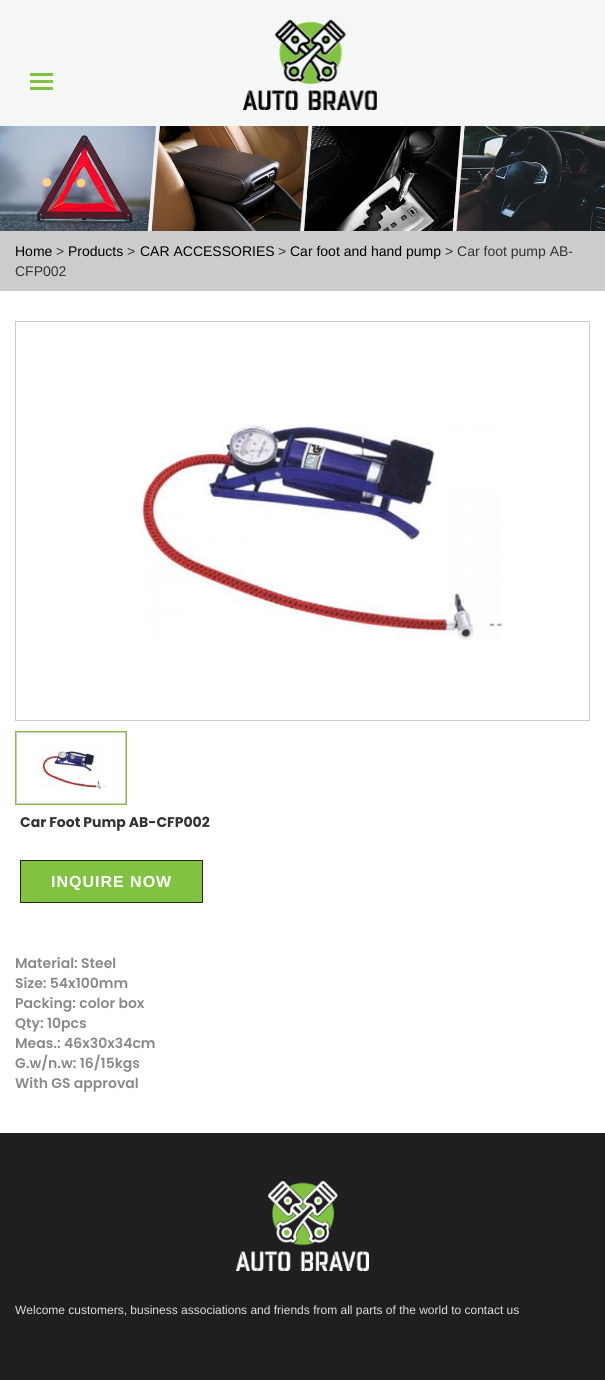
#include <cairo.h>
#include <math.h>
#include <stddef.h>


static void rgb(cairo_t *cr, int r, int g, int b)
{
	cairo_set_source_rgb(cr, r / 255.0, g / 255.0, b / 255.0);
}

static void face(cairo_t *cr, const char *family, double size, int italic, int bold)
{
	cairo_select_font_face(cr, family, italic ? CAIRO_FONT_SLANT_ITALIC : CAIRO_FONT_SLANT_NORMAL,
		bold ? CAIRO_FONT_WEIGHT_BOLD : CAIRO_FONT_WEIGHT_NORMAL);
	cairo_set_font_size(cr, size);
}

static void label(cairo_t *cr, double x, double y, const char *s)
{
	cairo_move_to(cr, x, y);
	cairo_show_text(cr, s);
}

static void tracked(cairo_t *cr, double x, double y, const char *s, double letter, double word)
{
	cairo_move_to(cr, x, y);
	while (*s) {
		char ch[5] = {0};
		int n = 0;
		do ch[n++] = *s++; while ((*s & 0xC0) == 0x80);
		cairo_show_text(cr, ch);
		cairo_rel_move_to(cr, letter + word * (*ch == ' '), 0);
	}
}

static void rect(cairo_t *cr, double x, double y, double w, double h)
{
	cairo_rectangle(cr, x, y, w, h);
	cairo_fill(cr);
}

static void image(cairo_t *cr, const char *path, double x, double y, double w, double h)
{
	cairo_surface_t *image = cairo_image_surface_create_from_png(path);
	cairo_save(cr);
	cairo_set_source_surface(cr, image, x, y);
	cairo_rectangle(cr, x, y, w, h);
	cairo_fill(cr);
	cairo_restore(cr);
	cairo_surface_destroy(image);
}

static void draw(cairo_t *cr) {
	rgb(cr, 255, 255, 255);
	cairo_paint(cr);
	rgb(cr, 245, 247, 247);
	rect(cr, 0, 0, 605, 126);
	rgb(cr, 129, 195, 65);
	rect(cr, 30, 80, 23, 3);
	rect(cr, 30, 73, 23, 3);
	rect(cr, 30, 87, 23, 3);
	image(cr, "image0.png", 243, 20, 134, 90);
	image(cr, "image1.png", 0, 126, 605, 105);
	rgb(cr, 204, 204, 204);
	rect(cr, 0, 231, 605, 60);
	face(cr, "Liberation Sans", 14, 0, 0);
	rgb(cr, 0, 0, 0);
	label(cr, 15, 256, "Home");
	rgb(cr, 51, 51, 51);
	label(cr, 56, 256, ">");
	rgb(cr, 0, 0, 0);
	label(cr, 68, 256, "Products");
	rgb(cr, 51, 51, 51);
	label(cr, 127, 256, ">");
	rgb(cr, 0, 0, 0);
	label(cr, 140, 256, "CAR ACCESSORIES");
	rgb(cr, 51, 51, 51);
	label(cr, 278, 256, ">");
	rgb(cr, 0, 0, 0);
	label(cr, 290, 256, "Car foot and hand pump");
	rgb(cr, 51, 51, 51);
	label(cr, 445, 256, "> Car foot pump AB-");
	label(cr, 15, 276, "CFP002");
	cairo_rectangle(cr, 15.5, 321.5, 574, 399);
	rgb(cr, 204, 204, 204);
	cairo_set_line_width(cr, 1);
	cairo_stroke(cr);
	image(cr, "image2.png", 141, 423, 361, 218);
	cairo_rectangle(cr, 15.5, 731.5, 111, 73);
	rgb(cr, 129, 195, 65);
	cairo_stroke(cr);
	cairo_rectangle(cr, 16.5, 732.5, 109, 71);
	rgb(cr, 204, 204, 204);
	cairo_stroke(cr);
	image(cr, "image3.png", 36, 744, 70, 45);
	face(cr, "Poppins", 14, 0, 1);
	rgb(cr, 51, 51, 51);
	label(cr, 20, 827, "Car Foot Pump AB-CFP002");
	rgb(cr, 129, 195, 65);
	cairo_rectangle(cr, 20.5, 860.5, 182, 42);
	cairo_fill_preserve(cr);
	rgb(cr, 35, 35, 36);
	cairo_stroke(cr);
	face(cr, "Liberation Sans", 16, 0, 1);
	rgb(cr, 255, 255, 255);
	tracked(cr, 51, 887, "INQUIRE NOW", 1, 0);
	face(cr, "Poppins SemiBold", 14, 0, 0);
	rgb(cr, 137, 137, 137);
	label(cr, 15, 968, "Material: Steel");
	label(cr, 15, 988, "Size: 54x100mm");
	label(cr, 15, 1008, "Packing: color box");
	label(cr, 15, 1028, "Qty: 10pcs");
	label(cr, 15, 1048, "Meas.: 46x30x34cm");
	label(cr, 15, 1068, "G.w/n.w: 16/15kgs");
	label(cr, 15, 1088, "With GS approval");
	rgb(cr, 31, 31, 33);
	rect(cr, 0, 1133, 605, 247);
	image(cr, "image4.png", 236, 1181, 133, 90);
	face(cr, "Liberation Sans", 12, 0, 0);
	rgb(cr, 223, 223, 223);
	label(cr, 15, 1314, "Welcome customers, business associations and friends from all parts of the world to contact us");
}

int main(void) {
	cairo_surface_t *surface = cairo_image_surface_create(CAIRO_FORMAT_RGB24, 605, 1380);
	cairo_t *cr = cairo_create(surface);
	cairo_font_options_t *options = cairo_font_options_create();
	cairo_font_options_set_hint_metrics(options, CAIRO_HINT_METRICS_OFF);
	cairo_font_options_set_hint_style(options, CAIRO_HINT_STYLE_NONE);
	cairo_set_font_options(cr, options);
	cairo_set_miter_limit(cr, 4);
	draw(cr);
	cairo_surface_write_to_png(surface, "render.png");
	cairo_font_options_destroy(options);
	cairo_destroy(cr);
	cairo_surface_destroy(surface);
	return 0;
}
